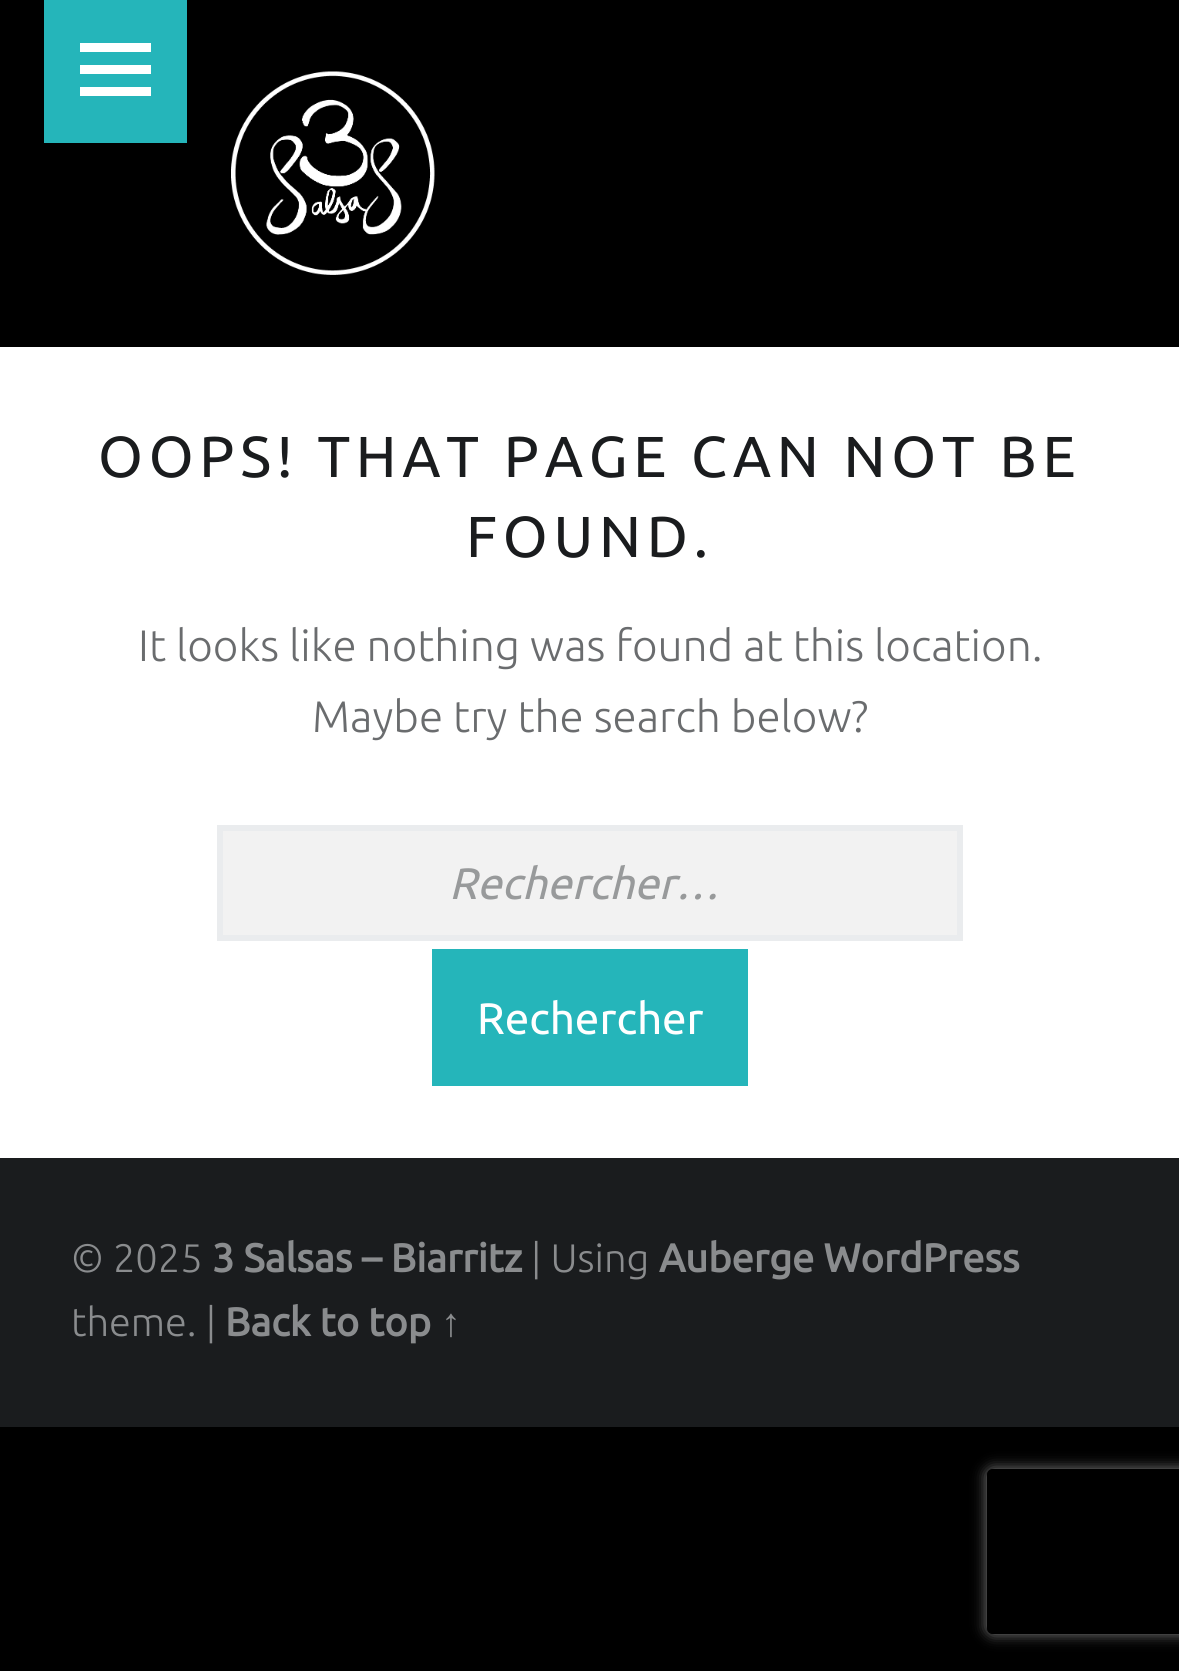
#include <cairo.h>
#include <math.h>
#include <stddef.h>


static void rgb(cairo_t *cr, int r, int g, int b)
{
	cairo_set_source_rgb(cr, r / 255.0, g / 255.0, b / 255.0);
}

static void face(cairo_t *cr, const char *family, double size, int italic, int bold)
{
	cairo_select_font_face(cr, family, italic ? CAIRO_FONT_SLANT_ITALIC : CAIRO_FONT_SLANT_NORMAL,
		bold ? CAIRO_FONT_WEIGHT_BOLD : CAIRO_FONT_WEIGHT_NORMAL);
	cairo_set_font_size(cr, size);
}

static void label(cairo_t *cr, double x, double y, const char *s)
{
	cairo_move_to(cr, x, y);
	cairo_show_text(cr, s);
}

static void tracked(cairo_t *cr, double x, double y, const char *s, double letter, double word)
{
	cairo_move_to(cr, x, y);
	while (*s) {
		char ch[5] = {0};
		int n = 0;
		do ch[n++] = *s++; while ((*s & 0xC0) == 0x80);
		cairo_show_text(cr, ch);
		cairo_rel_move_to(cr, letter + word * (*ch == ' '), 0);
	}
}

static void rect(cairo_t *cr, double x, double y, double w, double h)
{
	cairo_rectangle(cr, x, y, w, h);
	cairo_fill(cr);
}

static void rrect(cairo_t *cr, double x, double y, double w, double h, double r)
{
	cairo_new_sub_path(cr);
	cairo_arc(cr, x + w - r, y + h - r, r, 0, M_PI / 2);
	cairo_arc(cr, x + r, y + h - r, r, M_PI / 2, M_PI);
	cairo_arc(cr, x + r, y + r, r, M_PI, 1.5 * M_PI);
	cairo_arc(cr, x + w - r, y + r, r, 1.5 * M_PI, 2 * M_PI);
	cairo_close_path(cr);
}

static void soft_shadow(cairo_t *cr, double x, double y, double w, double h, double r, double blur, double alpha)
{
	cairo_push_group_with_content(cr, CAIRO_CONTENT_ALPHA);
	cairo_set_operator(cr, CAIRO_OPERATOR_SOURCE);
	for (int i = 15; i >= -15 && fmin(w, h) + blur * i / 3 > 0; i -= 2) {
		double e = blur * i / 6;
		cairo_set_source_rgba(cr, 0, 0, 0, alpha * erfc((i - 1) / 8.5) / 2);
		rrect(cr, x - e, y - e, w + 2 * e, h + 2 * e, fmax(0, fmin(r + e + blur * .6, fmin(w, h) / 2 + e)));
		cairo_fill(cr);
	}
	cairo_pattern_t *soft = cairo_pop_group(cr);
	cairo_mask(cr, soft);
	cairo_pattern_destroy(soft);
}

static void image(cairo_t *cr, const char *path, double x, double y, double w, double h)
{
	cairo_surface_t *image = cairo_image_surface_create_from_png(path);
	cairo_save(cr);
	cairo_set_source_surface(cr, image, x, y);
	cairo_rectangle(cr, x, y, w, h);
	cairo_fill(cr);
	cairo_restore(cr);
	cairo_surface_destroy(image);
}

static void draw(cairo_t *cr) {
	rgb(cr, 0, 0, 0);
	cairo_paint(cr);
	rgb(cr, 255, 255, 255);
	rect(cr, 0, 347, 1179, 811);
	rgb(cr, 37, 181, 186);
	rect(cr, 44, 0, 143, 143);
	rgb(cr, 255, 255, 255);
	cairo_new_path(cr);
	cairo_move_to(cr, 80, 96);
	cairo_line_to(cr, 80, 87);
	cairo_line_to(cr, 151, 87);
	cairo_line_to(cr, 151, 96);
	cairo_close_path(cr);
	cairo_move_to(cr, 80, 43);
	cairo_line_to(cr, 151, 43);
	cairo_line_to(cr, 151, 52);
	cairo_line_to(cr, 80, 52);
	cairo_close_path(cr);
	cairo_move_to(cr, 80, 74);
	cairo_line_to(cr, 80, 65);
	cairo_line_to(cr, 151, 65);
	cairo_line_to(cr, 151, 74);
	cairo_close_path(cr);
	cairo_fill(cr);
	image(cr, "image0.png", 231, 71, 204, 204);
	face(cr, "Ubuntu", 57.75, 0, 0);
	rgb(cr, 26, 28, 30);
	tracked(cr, 98, 477, "OOPS! THAT PAGE CAN NOT BE", 5.75, 0);
	tracked(cr, 466, 557, "FOUND.", 5.75, 0);
	face(cr, "Ubuntu Light", 44, 0, 0);
	rgb(cr, 106, 108, 110);
	label(cr, 138, 661, "It looks like nothing was found at this location.");
	label(cr, 312, 732, "Maybe try the search below?");
	rgb(cr, 242, 242, 242);
	cairo_rectangle(cr, 220, 828, 740, 110);
	cairo_fill_preserve(cr);
	rgb(cr, 234, 236, 238);
	cairo_set_line_width(cr, 6);
	cairo_stroke(cr);
	face(cr, "Ubuntu", 44, 1, 0);
	rgb(cr, 152, 154, 155);
	label(cr, 449, 899, "Rechercher…");
	rgb(cr, 37, 181, 186);
	rect(cr, 432, 949, 316, 137);
	face(cr, "Ubuntu", 44, 0, 0);
	rgb(cr, 255, 255, 255);
	label(cr, 477, 1034, "Rechercher");
	rgb(cr, 26, 28, 30);
	rect(cr, 0, 1158, 1179, 269);
	face(cr, "Ubuntu Light", 39.75, 0, 0);
	rgb(cr, 138, 140, 142);
	label(cr, 71, 1272, "© 2025");
	face(cr, "Ubuntu", 39.75, 0, 1);
	label(cr, 212, 1272, "3 Salsas – Biarritz");
	face(cr, "Ubuntu Light", 39.75, 0, 0);
	label(cr, 531, 1272, "| Using");
	face(cr, "Ubuntu", 39.75, 0, 1);
	label(cr, 659, 1272, "Auberge WordPress");
	face(cr, "Ubuntu Light", 39.75, 0, 0);
	label(cr, 71, 1336, "theme. |");
	face(cr, "Ubuntu", 39.75, 0, 1);
	label(cr, 225, 1336, "Back to top");
	face(cr, "Liberation Sans", 39.75, 0, 1);
	label(cr, 441, 1336, "↑");
	cairo_save(cr);
	cairo_set_fill_rule(cr, CAIRO_FILL_RULE_EVEN_ODD);
	cairo_new_path(cr);
	cairo_move_to(cr, 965, 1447);
	cairo_line_to(cr, 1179, 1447);
	cairo_line_to(cr, 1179, 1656);
	cairo_line_to(cr, 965, 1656);
	cairo_close_path(cr);
	cairo_move_to(cr, 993, 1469);
	cairo_line_to(cr, 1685, 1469);
	cairo_curve_to(cr, 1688.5, 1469, 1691, 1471.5, 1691, 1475);
	cairo_line_to(cr, 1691, 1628);
	cairo_curve_to(cr, 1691, 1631.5, 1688.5, 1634, 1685, 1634);
	cairo_line_to(cr, 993, 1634);
	cairo_curve_to(cr, 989.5, 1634, 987, 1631.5, 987, 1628);
	cairo_line_to(cr, 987, 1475);
	cairo_curve_to(cr, 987, 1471.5, 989.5, 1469, 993, 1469);
	cairo_close_path(cr);
	cairo_clip(cr);
	rgb(cr, 128, 128, 128);
	soft_shadow(cr, 987, 1469, 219, 165, 6, 7, 1);
	cairo_restore(cr);
}

int main(void) {
	cairo_surface_t *surface = cairo_image_surface_create(CAIRO_FORMAT_RGB24, 1179, 1671);
	cairo_t *cr = cairo_create(surface);
	cairo_font_options_t *options = cairo_font_options_create();
	cairo_font_options_set_hint_metrics(options, CAIRO_HINT_METRICS_OFF);
	cairo_font_options_set_hint_style(options, CAIRO_HINT_STYLE_NONE);
	cairo_set_font_options(cr, options);
	cairo_set_miter_limit(cr, 4);
	draw(cr);
	cairo_surface_write_to_png(surface, "render.png");
	cairo_font_options_destroy(options);
	cairo_destroy(cr);
	cairo_surface_destroy(surface);
	return 0;
}
